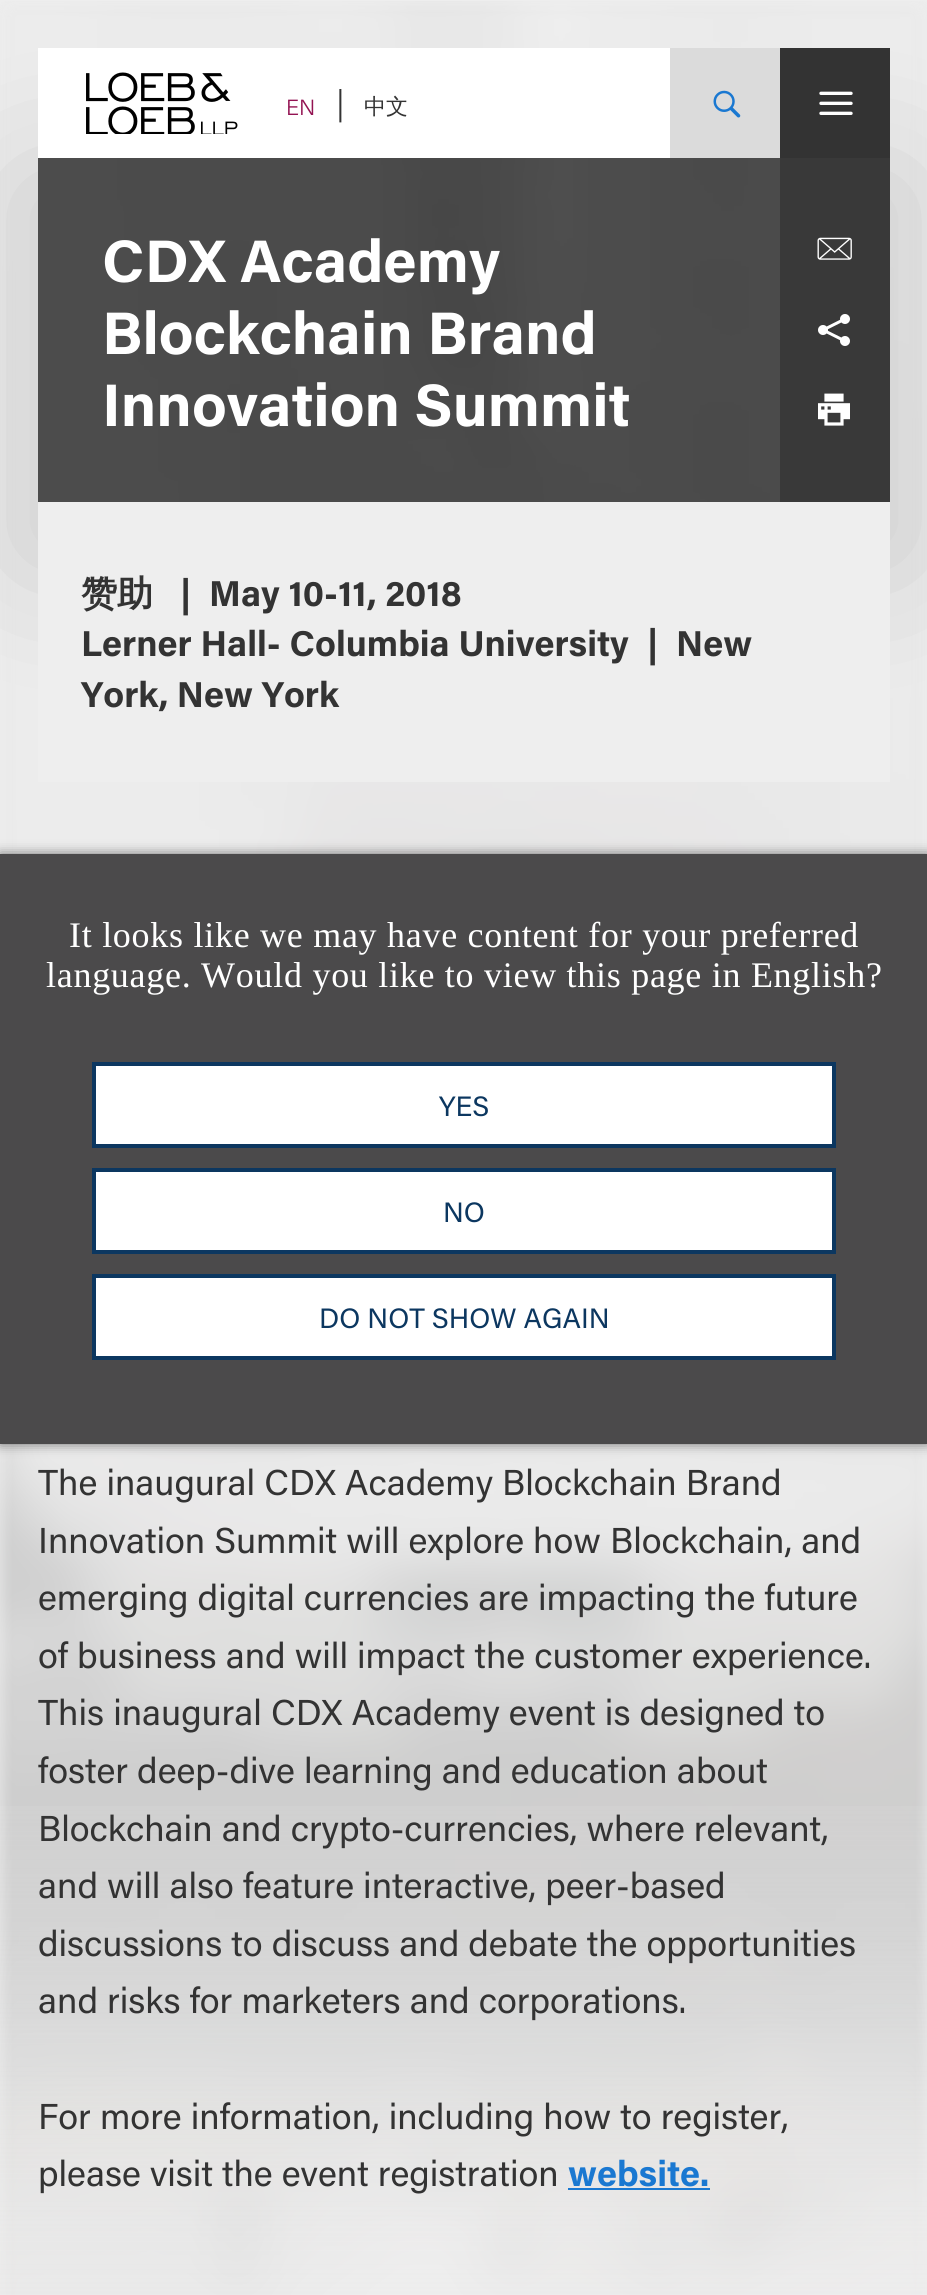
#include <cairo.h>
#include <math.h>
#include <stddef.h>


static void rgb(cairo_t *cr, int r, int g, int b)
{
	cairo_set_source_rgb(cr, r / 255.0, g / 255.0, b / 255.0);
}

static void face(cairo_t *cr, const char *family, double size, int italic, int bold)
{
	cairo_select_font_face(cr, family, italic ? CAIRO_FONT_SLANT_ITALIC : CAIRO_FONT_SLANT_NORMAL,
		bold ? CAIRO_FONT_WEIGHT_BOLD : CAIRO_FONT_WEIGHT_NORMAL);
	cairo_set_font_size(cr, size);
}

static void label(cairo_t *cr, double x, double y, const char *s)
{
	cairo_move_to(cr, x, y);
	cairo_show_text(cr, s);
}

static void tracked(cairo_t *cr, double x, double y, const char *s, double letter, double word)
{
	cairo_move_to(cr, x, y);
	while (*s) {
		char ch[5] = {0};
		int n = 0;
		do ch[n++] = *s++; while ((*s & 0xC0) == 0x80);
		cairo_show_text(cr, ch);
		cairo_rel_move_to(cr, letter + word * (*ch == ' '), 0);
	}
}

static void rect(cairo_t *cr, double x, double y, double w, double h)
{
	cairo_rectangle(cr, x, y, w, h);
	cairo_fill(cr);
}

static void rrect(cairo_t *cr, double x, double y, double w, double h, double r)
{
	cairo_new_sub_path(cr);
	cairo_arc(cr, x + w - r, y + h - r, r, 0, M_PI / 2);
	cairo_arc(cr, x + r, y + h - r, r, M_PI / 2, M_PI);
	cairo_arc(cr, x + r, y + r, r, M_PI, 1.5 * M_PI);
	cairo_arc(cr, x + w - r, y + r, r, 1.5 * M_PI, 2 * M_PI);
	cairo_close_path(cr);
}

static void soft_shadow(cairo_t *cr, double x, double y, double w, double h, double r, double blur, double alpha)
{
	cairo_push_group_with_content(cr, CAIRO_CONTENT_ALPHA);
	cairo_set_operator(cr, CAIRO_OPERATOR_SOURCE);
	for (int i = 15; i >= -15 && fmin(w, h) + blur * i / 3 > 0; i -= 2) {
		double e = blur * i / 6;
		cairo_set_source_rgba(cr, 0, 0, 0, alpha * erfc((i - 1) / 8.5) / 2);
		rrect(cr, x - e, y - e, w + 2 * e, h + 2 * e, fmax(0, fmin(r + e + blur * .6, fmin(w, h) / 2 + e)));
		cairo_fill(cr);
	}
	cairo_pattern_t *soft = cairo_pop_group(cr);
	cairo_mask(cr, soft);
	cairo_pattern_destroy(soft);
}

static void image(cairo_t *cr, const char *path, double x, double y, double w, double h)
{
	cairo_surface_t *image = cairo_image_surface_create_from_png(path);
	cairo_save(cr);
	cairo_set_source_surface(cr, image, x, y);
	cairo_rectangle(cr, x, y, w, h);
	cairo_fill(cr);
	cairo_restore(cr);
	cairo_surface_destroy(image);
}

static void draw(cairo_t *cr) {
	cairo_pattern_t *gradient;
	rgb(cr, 238, 238, 238);
	cairo_paint(cr);
	rgb(cr, 51, 51, 51);
	rect(cr, 38, 158, 742, 344);
	cairo_save(cr);
	cairo_set_fill_rule(cr, CAIRO_FILL_RULE_EVEN_ODD);
	cairo_new_path(cr);
	cairo_move_to(cr, 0, 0);
	cairo_line_to(cr, 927, 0);
	cairo_line_to(cr, 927, 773);
	cairo_line_to(cr, 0, 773);
	cairo_close_path(cr);
	cairo_move_to(cr, 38, 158);
	cairo_line_to(cr, 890, 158);
	cairo_line_to(cr, 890, 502);
	cairo_line_to(cr, 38, 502);
	cairo_close_path(cr);
	cairo_clip(cr);
	rgb(cr, 0, 0, 0);
	soft_shadow(cr, 18, 178, 892, 384, 0, 70, 0.15);
	cairo_restore(cr);
	image(cr, "image3.png", 0, 1, 927, 2294);
	rgb(cr, 255, 255, 255);
	rect(cr, 38, 48, 632, 110);
	image(cr, "image0.png", 86, 72, 152, 62);
	face(cr, "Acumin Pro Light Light", 22, 0, 0);
	rgb(cr, 147, 19, 82);
	label(cr, 286, 115, "EN");
	face(cr, "Acumin Pro Light Light", 32, 0, 0);
	rgb(cr, 51, 51, 51);
	label(cr, 336, 114, "|");
	face(cr, "WenQuanYi Zen Hei Medium", 22, 0, 0);
	label(cr, 364, 114, "中文");
	rgb(cr, 219, 219, 219);
	rect(cr, 670, 48, 110, 110);
	image(cr, "image1.png", 713, 90, 28, 28);
	rgb(cr, 51, 51, 51);
	rect(cr, 780, 48, 110, 110);
	image(cr, "image2.png", 819, 91, 34, 24);
	gradient = cairo_pattern_create_linear(464, 1722, 464, 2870);
	cairo_pattern_add_color_stop_rgba(gradient, 0, 0.933, 0.933, 0.933, 0);
	cairo_pattern_add_color_stop_rgba(gradient, 1, 0.933, 0.933, 0.933, 1);
	cairo_set_source(cr, gradient);
	cairo_pattern_destroy(gradient);
	rect(cr, 0, 1806, 927, 489);
	face(cr, "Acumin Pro", 60, 0, 1);
	rgb(cr, 255, 255, 255);
	label(cr, 102, 282, "CDX Academy");
	label(cr, 102, 354, "Blockchain Brand");
	label(cr, 102, 426, "Innovation Summit");
	rgb(cr, 57, 57, 57);
	rect(cr, 780, 158, 110, 344);
	image(cr, "image4.png", 817, 237, 35, 23);
	image(cr, "image5.png", 818, 314, 32, 32);
	image(cr, "image6.png", 818, 393, 32, 33);
	rgb(cr, 238, 238, 238);
	rect(cr, 38, 502, 852, 280);
	face(cr, "WenQuanYi Zen Hei", 36, 0, 1);
	rgb(cr, 51, 51, 51);
	label(cr, 81, 606, "赞助");
	face(cr, "Acumin Pro", 36, 0, 1);
	label(cr, 180, 606, "|");
	label(cr, 209, 606, "May 10-11, 2018");
	label(cr, 81, 656, "Lerner Hall- Columbia University");
	label(cr, 647, 656, "|");
	label(cr, 676, 656, "New");
	label(cr, 81, 707, "York, New York");
	face(cr, "Acumin Pro", 36, 0, 0);
	label(cr, 38, 1495, "The inaugural CDX Academy Blockchain Brand");
	label(cr, 38, 1553, "Innovation Summit will explore how Blockchain, and");
	label(cr, 38, 1610, "emerging digital currencies are impacting the future");
	label(cr, 38, 1668, "of business and will impact the customer experience.");
	label(cr, 38, 1725, "This inaugural CDX Academy event is designed to");
	label(cr, 38, 1783, "foster deep-dive learning and education about");
	label(cr, 38, 1841, "Blockchain and crypto-currencies, where relevant,");
	label(cr, 38, 1898, "and will also feature interactive, peer-based");
	label(cr, 38, 1956, "discussions to discuss and debate the opportunities");
	label(cr, 38, 2013, "and risks for marketers and corporations.");
	label(cr, 38, 2129, "For more information, including how to register,");
	label(cr, 38, 2186, "please visit the event registration");
	face(cr, "Acumin Pro", 36, 0, 1);
	rgb(cr, 26, 120, 209);
	label(cr, 568, 2186, "website.");
	rect(cr, 568, 2188, 142, 2);
	rgb(cr, 0, 0, 0);
	soft_shadow(cr, 0, 854, 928, 590, 0, 6, 0.5);
	rgb(cr, 75, 74, 75);
	rect(cr, 0, 854, 927, 590);
	face(cr, "Liberation Serif", 36, 0, 0);
	rgb(cr, 255, 255, 255);
	tracked(cr, 69, 947, "It looks like we may have content for your preferred", 0.72, 0);
	tracked(cr, 46, 987, "language. Would you like to view this page in English?", 0.72, 0);
	cairo_rectangle(cr, 94, 1064, 740, 82);
	cairo_fill_preserve(cr);
	rgb(cr, 12, 55, 96);
	cairo_set_line_width(cr, 4);
	cairo_stroke(cr);
	face(cr, "Acumin Pro", 28, 0, 0);
	label(cr, 439, 1116, "YES");
	rgb(cr, 255, 255, 255);
	cairo_rectangle(cr, 94, 1170, 740, 82);
	cairo_fill_preserve(cr);
	rgb(cr, 12, 55, 96);
	cairo_stroke(cr);
	label(cr, 443, 1222, "NO");
	rgb(cr, 255, 255, 255);
	cairo_rectangle(cr, 94, 1276, 740, 82);
	cairo_fill_preserve(cr);
	rgb(cr, 12, 55, 96);
	cairo_stroke(cr);
	label(cr, 319, 1328, "DO NOT SHOW AGAIN");
}

int main(void) {
	cairo_surface_t *surface = cairo_image_surface_create(CAIRO_FORMAT_RGB24, 927, 2295);
	cairo_t *cr = cairo_create(surface);
	cairo_font_options_t *options = cairo_font_options_create();
	cairo_font_options_set_hint_metrics(options, CAIRO_HINT_METRICS_OFF);
	cairo_font_options_set_hint_style(options, CAIRO_HINT_STYLE_NONE);
	cairo_set_font_options(cr, options);
	cairo_set_miter_limit(cr, 4);
	draw(cr);
	cairo_surface_write_to_png(surface, "render.png");
	cairo_font_options_destroy(options);
	cairo_destroy(cr);
	cairo_surface_destroy(surface);
	return 0;
}
